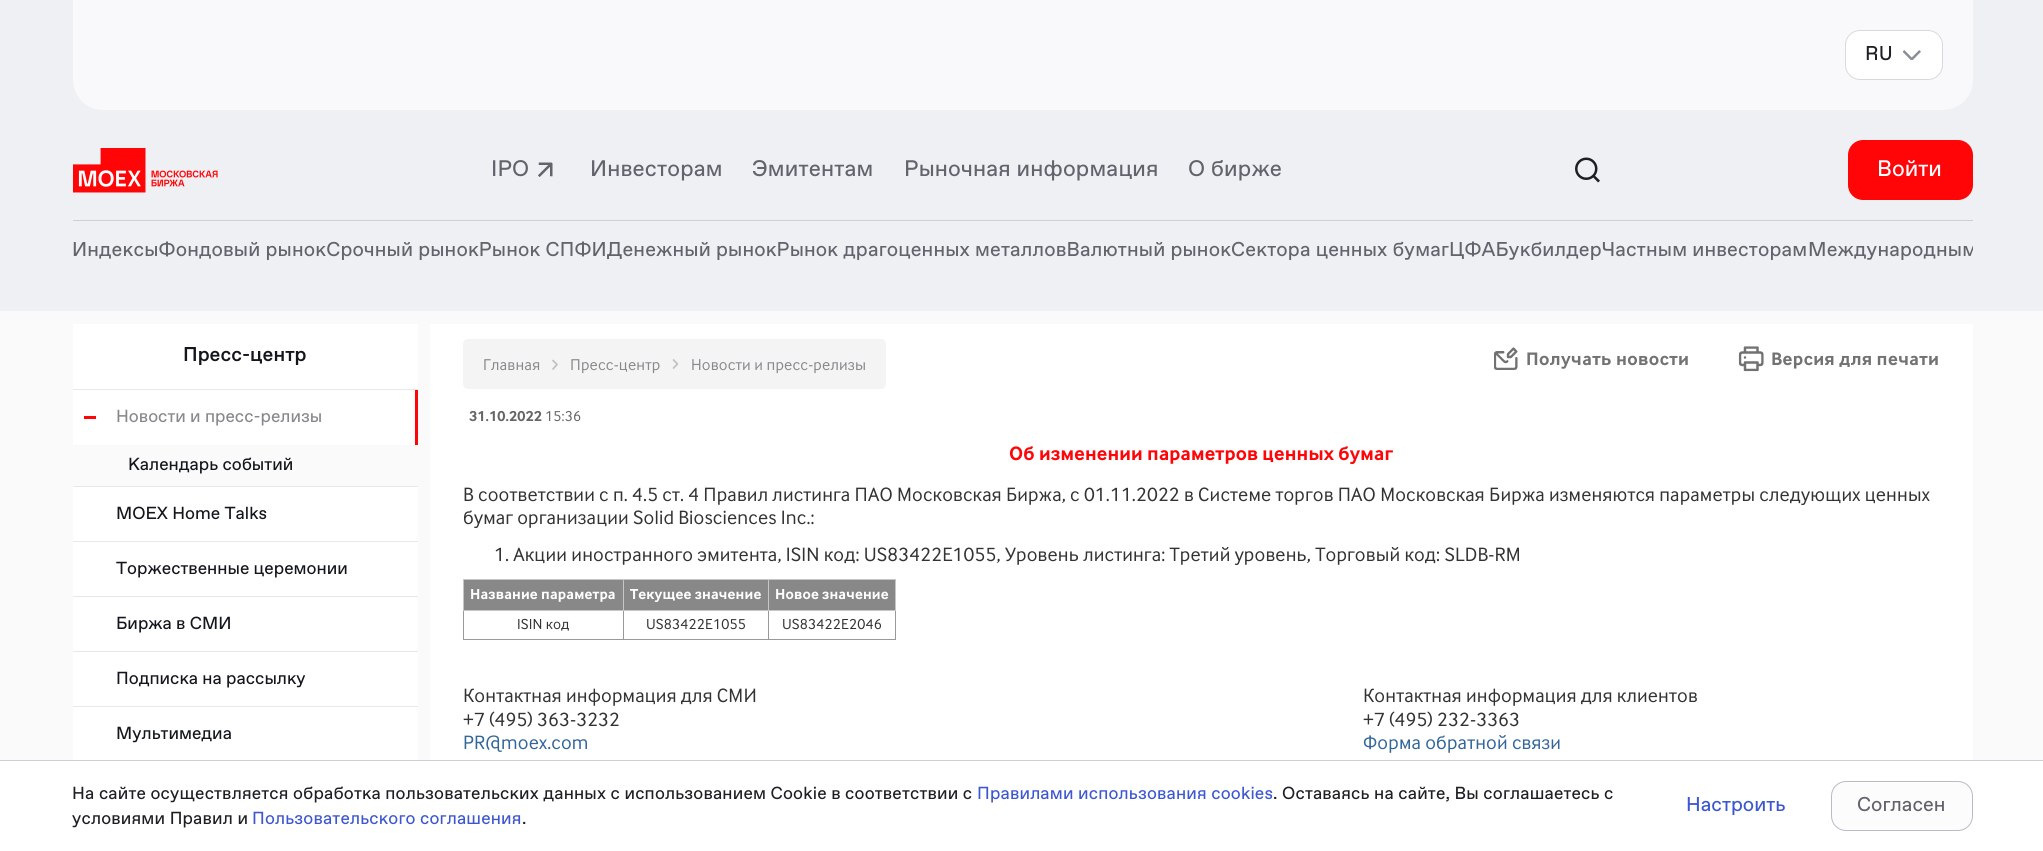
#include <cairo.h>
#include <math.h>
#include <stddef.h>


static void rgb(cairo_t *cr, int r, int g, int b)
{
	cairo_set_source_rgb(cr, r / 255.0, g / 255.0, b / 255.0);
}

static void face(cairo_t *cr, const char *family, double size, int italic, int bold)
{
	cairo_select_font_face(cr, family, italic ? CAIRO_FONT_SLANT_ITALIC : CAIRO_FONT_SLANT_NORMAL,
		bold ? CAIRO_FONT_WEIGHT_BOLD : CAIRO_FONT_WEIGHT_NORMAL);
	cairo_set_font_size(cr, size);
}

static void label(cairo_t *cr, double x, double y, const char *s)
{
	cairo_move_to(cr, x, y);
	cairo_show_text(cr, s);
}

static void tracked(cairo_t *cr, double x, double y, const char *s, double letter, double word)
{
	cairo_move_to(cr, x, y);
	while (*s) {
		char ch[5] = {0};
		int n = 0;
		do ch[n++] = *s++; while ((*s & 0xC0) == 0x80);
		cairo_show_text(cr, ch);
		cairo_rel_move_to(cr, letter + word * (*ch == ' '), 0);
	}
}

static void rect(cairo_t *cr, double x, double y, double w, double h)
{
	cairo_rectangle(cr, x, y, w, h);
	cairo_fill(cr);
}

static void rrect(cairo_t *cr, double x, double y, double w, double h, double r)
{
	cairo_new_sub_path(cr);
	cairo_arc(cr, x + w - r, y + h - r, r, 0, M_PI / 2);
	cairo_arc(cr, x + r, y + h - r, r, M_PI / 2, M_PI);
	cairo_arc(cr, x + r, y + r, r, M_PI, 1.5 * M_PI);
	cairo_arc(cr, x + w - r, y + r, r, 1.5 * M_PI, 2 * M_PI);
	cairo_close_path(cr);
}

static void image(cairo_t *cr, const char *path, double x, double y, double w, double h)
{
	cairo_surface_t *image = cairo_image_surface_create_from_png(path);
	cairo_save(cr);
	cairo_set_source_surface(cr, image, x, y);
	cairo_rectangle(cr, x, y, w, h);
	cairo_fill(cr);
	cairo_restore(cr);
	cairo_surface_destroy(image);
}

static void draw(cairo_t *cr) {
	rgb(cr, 250, 250, 250);
	cairo_paint(cr);
	rgb(cr, 239, 240, 243);
	rect(cr, 0, 0, 2043, 311);
	rgb(cr, 249, 249, 251);
	cairo_new_path(cr);
	cairo_move_to(cr, 73, 0);
	cairo_line_to(cr, 1973, 0);
	cairo_line_to(cr, 1973, 80);
	cairo_curve_to(cr, 1973, 96.5, 1959.5, 110, 1943, 110);
	cairo_line_to(cr, 103, 110);
	cairo_curve_to(cr, 86.5, 110, 73, 96.5, 73, 80);
	cairo_close_path(cr);
	cairo_fill(cr);
	rgb(cr, 255, 255, 255);
	rrect(cr, 1845.5, 30.5, 97, 49, 14.5);
	cairo_fill_preserve(cr);
	rgb(cr, 216, 217, 224);
	cairo_set_line_width(cr, 1);
	cairo_stroke(cr);
	face(cr, "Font", 20, 0, 0);
	rgb(cr, 30, 31, 36);
	tracked(cr, 1865, 60, "RU", 0.16, 0);
	image(cr, "image0.png", 1903, 50, 18, 10);
	image(cr, "image1.png", 73, 148, 145, 45);
	face(cr, "Font", 22.5, 0, 0);
	rgb(cr, 98, 99, 108);
	tracked(cr, 491, 176, "IPO", 0.16, 0);
	image(cr, "image2.png", 538, 162, 15, 15);
	tracked(cr, 590, 176, "Инвесторам", 0.16, 0);
	tracked(cr, 752, 176, "Эмитентам", 0.16, 0);
	tracked(cr, 904, 176, "Рыночная информация", 0.16, 0);
	tracked(cr, 1188, 176, "О бирже", 0.16, 0);
	image(cr, "image3.png", 1575, 157, 25, 26);
	rgb(cr, 255, 5, 8);
	rrect(cr, 1848, 140, 125, 60, 15);
	cairo_fill(cr);
	rgb(cr, 255, 255, 255);
	label(cr, 1877, 176, "Войти");
	rgb(cr, 205, 206, 215);
	rect(cr, 73, 220, 1900, 1);
	face(cr, "Font", 20, 0, 0);
	rgb(cr, 98, 99, 108);
	tracked(cr, 72, 256, "ИндексыФондовый рынокСрочный рынокРынок СПФИДенежный рынокРынок драгоценных металловВалютный рынокСектора ценных бумагЦФАБукбилдерЧастным инвесторам", 0.16, 0);
	cairo_save(cr);
	cairo_rectangle(cr, 73, 221, 1900, 60);
	cairo_clip(cr);
	tracked(cr, 1808, 256, "Международным", 0.16, 0);
	cairo_restore(cr);
	rgb(cr, 255, 255, 255);
	rect(cr, 73, 324, 345, 436);
	rgb(cr, 232, 232, 232);
	rect(cr, 73, 389, 345, 1);
	face(cr, "Font Medium", 20, 0, 0);
	rgb(cr, 19, 22, 28);
	label(cr, 183, 361, "Пресс-центр");
	rgb(cr, 232, 232, 232);
	rect(cr, 73, 486, 345, 1);
	rgb(cr, 255, 5, 8);
	rect(cr, 415, 390, 3, 55);
	rect(cr, 84, 416, 12, 3);
	face(cr, "Font", 17.5, 0, 0);
	rgb(cr, 135, 137, 141);
	label(cr, 116, 422, "Новости и пресс-релизы");
	rgb(cr, 250, 250, 250);
	rect(cr, 73, 445, 345, 41);
	rgb(cr, 19, 22, 28);
	label(cr, 128, 470, "Календарь событий");
	rgb(cr, 232, 232, 232);
	rect(cr, 73, 541, 345, 1);
	rgb(cr, 19, 22, 28);
	label(cr, 116, 519, "MOEX Home Talks");
	rgb(cr, 232, 232, 232);
	rect(cr, 73, 596, 345, 1);
	rgb(cr, 19, 22, 28);
	label(cr, 116, 574, "Торжественные церемонии");
	rgb(cr, 232, 232, 232);
	rect(cr, 73, 651, 345, 1);
	rgb(cr, 19, 22, 28);
	label(cr, 116, 629, "Биржа в СМИ");
	rgb(cr, 232, 232, 232);
	rect(cr, 73, 706, 345, 1);
	rgb(cr, 19, 22, 28);
	label(cr, 116, 684, "Подписка на рассылку");
	label(cr, 116, 739, "Мультимедиа");
	rgb(cr, 255, 255, 255);
	rect(cr, 430, 324, 1543, 436);
	rgb(cr, 244, 244, 244);
	rrect(cr, 463, 339, 423, 50, 5);
	cairo_fill(cr);
	face(cr, "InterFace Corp", 16.25, 0, 0);
	rgb(cr, 135, 137, 141);
	tracked(cr, 483, 370, "Главная", 0.16, 0);
	cairo_save(cr);
	cairo_new_path(cr);
	cairo_move_to(cr, 552, 369.5);
	cairo_line_to(cr, 552, 359.5);
	cairo_line_to(cr, 558.5, 359.5);
	cairo_line_to(cr, 558.5, 369.5);
	cairo_close_path(cr);
	cairo_clip(cr);
	cairo_new_path(cr);
	cairo_move_to(cr, 552, 369.5);
	cairo_line_to(cr, 552, 359.5);
	cairo_line_to(cr, 558, 359.5);
	cairo_line_to(cr, 558, 369.5);
	cairo_close_path(cr);
	cairo_clip(cr);
	cairo_new_path(cr);
	cairo_move_to(cr, 553, 360.5);
	cairo_line_to(cr, 557, 364.5);
	cairo_line_to(cr, 553, 369);
	rgb(cr, 192, 192, 192);
	cairo_set_line_width(cr, 1.7);
	cairo_set_line_cap(cr, CAIRO_LINE_CAP_ROUND);
	cairo_set_line_join(cr, CAIRO_LINE_JOIN_ROUND);
	cairo_stroke(cr);
	cairo_restore(cr);
	tracked(cr, 570, 370, "Пресс-центр", 0.16, 0);
	cairo_save(cr);
	cairo_new_path(cr);
	cairo_move_to(cr, 672.5, 369.5);
	cairo_line_to(cr, 672.5, 359.5);
	cairo_line_to(cr, 678.5, 359.5);
	cairo_line_to(cr, 678.5, 369.5);
	cairo_close_path(cr);
	cairo_clip(cr);
	cairo_new_path(cr);
	cairo_move_to(cr, 673.5, 360);
	cairo_line_to(cr, 677.5, 364);
	cairo_line_to(cr, 673.5, 368);
	rgb(cr, 192, 192, 192);
	cairo_set_line_width(cr, 1.7);
	cairo_set_line_cap(cr, CAIRO_LINE_CAP_ROUND);
	cairo_set_line_join(cr, CAIRO_LINE_JOIN_ROUND);
	cairo_stroke(cr);
	cairo_restore(cr);
	tracked(cr, 691, 370, "Новости и пресс-релизы", 0.16, 0);
	image(cr, "image4.png", 1494, 347, 24, 23);
	face(cr, "InterFace Corp", 18.75, 0, 1);
	rgb(cr, 114, 114, 114);
	tracked(cr, 1526, 365, "Получать новости", 0.4, 0);
	image(cr, "image5.png", 1738, 346, 26, 26);
	tracked(cr, 1771, 365, "Версия для печати", 0.4, 0);
	face(cr, "InterFace Corp", 15, 0, 1);
	rgb(cr, 102, 102, 102);
	tracked(cr, 469, 421, "31.10.2022", 0.16, 0);
	face(cr, "InterFace Corp", 15, 0, 0);
	tracked(cr, 545, 421, "15:36", 0.16, 0);
	face(cr, "InterFace Corp", 20, 0, 1);
	rgb(cr, 255, 5, 8);
	tracked(cr, 1009, 460, "Об изменении параметров ценных бумаг", 0.16, 0);
	face(cr, "InterFace Corp", 20, 0, 0);
	rgb(cr, 51, 51, 51);
	tracked(cr, 463, 501, "В соответствии с п. 4.5 ст. 4 Правил листинга ПАО Московская Биржа, с 01.11.2022 в Системе торгов ПАО Московская Биржа изменяются параметры следующих ценных", 0.16, 0);
	tracked(cr, 463, 524, "бумаг организации Solid Biosciences Inc.:", 0.16, 0);
	tracked(cr, 494, 561, "1. Акции иностранного эмитента, ISIN код: US83422E1055, Уровень листинга: Третий уровень, Торговый код: SLDB-RM", 0.16, 0);
	rgb(cr, 198, 198, 198);
	rect(cr, 463, 579, 433, 1);
	rect(cr, 463, 579, 1, 31);
	rgb(cr, 136, 136, 136);
	rect(cr, 464, 580, 159, 30);
	rgb(cr, 153, 153, 153);
	rect(cr, 895, 610, 1, 30);
	rgb(cr, 198, 198, 198);
	rect(cr, 895, 579, 1, 32);
	rgb(cr, 153, 153, 153);
	rect(cr, 768, 639, 128, 1);
	rect(cr, 768, 610, 1, 30);
	rgb(cr, 198, 198, 198);
	rect(cr, 768, 610, 128, 1);
	rect(cr, 768, 579, 1, 32);
	rgb(cr, 153, 153, 153);
	rect(cr, 623, 639, 146, 1);
	rect(cr, 623, 610, 1, 30);
	rgb(cr, 198, 198, 198);
	rect(cr, 623, 610, 146, 1);
	rect(cr, 623, 579, 1, 32);
	rgb(cr, 153, 153, 153);
	rect(cr, 463, 639, 161, 1);
	rect(cr, 463, 610, 1, 30);
	rgb(cr, 198, 198, 198);
	rect(cr, 463, 610, 161, 1);
	face(cr, "InterFace Corp", 15, 0, 1);
	rgb(cr, 255, 255, 255);
	tracked(cr, 470, 599, "Название параметра", 0.16, 0);
	rgb(cr, 136, 136, 136);
	rect(cr, 624, 580, 144, 30);
	rgb(cr, 255, 255, 255);
	tracked(cr, 630, 599, "Текущее значение", 0.16, 0);
	rgb(cr, 136, 136, 136);
	rect(cr, 769, 580, 126, 30);
	rgb(cr, 255, 255, 255);
	tracked(cr, 775, 599, "Новое значение", 0.16, 0);
	face(cr, "InterFace Corp", 15, 0, 0);
	rgb(cr, 51, 51, 51);
	tracked(cr, 517, 629, "ISIN код", 0.16, 0);
	tracked(cr, 646, 629, "US83422E1055", 0.16, 0);
	tracked(cr, 782, 629, "US83422E2046", 0.16, 0);
	face(cr, "InterFace Corp", 20, 0, 0);
	tracked(cr, 463, 702, "Контактная информация для СМИ", 0.16, 0);
	tracked(cr, 463, 726, "+7 (495) 363-3232", 0.16, 0);
	rgb(cr, 51, 102, 153);
	tracked(cr, 463, 749, "PR@moex.com", 0.16, 0);
	rgb(cr, 51, 51, 51);
	tracked(cr, 1363, 702, "Контактная информация для клиентов", 0.16, 0);
	tracked(cr, 1363, 726, "+7 (495) 232-3363", 0.16, 0);
	rgb(cr, 51, 102, 153);
	tracked(cr, 1363, 749, "Форма обратной связи", 0.16, 0);
	rgb(cr, 255, 255, 255);
	rect(cr, 0, 761, 2043, 90);
	rgb(cr, 205, 206, 215);
	rect(cr, 0, 760, 2043, 1);
	face(cr, "Font", 17.5, 0, 0);
	rgb(cr, 30, 31, 36);
	tracked(cr, 72, 799, "На сайте осуществляется обработка пользовательских данных с использованием Cookie в соответствии с", 0.16, 0);
	rgb(cr, 61, 87, 208);
	tracked(cr, 977, 799, "Правилами использования cookies", 0.16, 0);
	rgb(cr, 30, 31, 36);
	tracked(cr, 1273, 799, ". Оставаясь на сайте, Вы соглашаетесь с", 0.16, 0);
	tracked(cr, 72, 824, "условиями Правил и", 0.16, 0);
	rgb(cr, 61, 87, 208);
	tracked(cr, 252, 824, "Пользовательского соглашения", 0.16, 0);
	rgb(cr, 30, 31, 36);
	tracked(cr, 522, 824, ".", 0.16, 0);
	face(cr, "Font", 20, 0, 0);
	rgb(cr, 61, 87, 208);
	label(cr, 1686, 811, "Настроить");
	rgb(cr, 252, 252, 253);
	rrect(cr, 1831.5, 781.5, 141, 49, 14.5);
	cairo_fill_preserve(cr);
	rgb(cr, 185, 187, 198);
	cairo_stroke(cr);
	rgb(cr, 98, 99, 108);
	label(cr, 1857, 811, "Согласен");
}

int main(void) {
	cairo_surface_t *surface = cairo_image_surface_create(CAIRO_FORMAT_RGB24, 2043, 851);
	cairo_t *cr = cairo_create(surface);
	cairo_font_options_t *options = cairo_font_options_create();
	cairo_font_options_set_hint_metrics(options, CAIRO_HINT_METRICS_OFF);
	cairo_font_options_set_hint_style(options, CAIRO_HINT_STYLE_NONE);
	cairo_set_font_options(cr, options);
	cairo_set_miter_limit(cr, 4);
	draw(cr);
	cairo_surface_write_to_png(surface, "render.png");
	cairo_font_options_destroy(options);
	cairo_destroy(cr);
	cairo_surface_destroy(surface);
	return 0;
}
